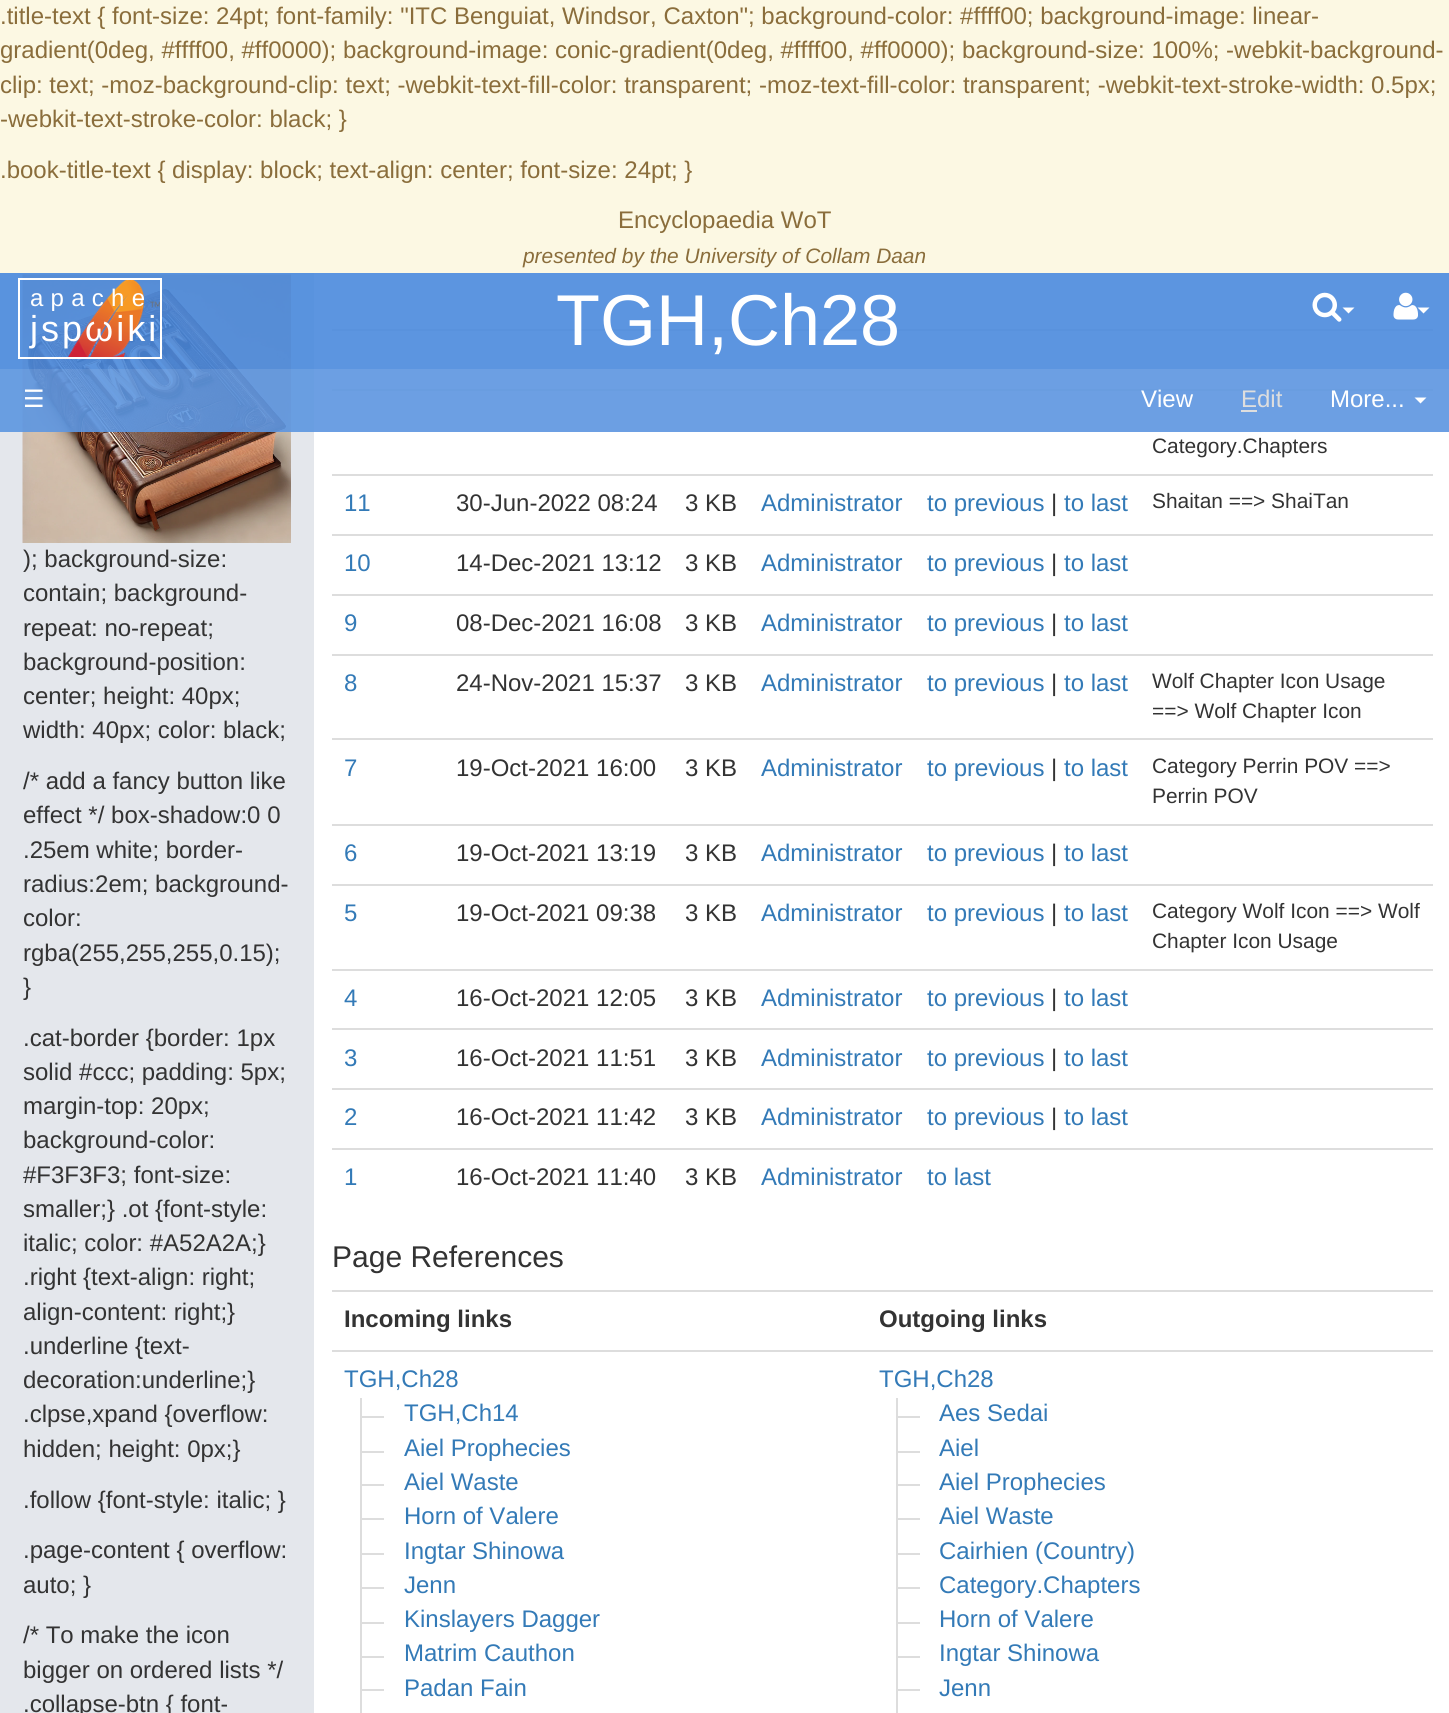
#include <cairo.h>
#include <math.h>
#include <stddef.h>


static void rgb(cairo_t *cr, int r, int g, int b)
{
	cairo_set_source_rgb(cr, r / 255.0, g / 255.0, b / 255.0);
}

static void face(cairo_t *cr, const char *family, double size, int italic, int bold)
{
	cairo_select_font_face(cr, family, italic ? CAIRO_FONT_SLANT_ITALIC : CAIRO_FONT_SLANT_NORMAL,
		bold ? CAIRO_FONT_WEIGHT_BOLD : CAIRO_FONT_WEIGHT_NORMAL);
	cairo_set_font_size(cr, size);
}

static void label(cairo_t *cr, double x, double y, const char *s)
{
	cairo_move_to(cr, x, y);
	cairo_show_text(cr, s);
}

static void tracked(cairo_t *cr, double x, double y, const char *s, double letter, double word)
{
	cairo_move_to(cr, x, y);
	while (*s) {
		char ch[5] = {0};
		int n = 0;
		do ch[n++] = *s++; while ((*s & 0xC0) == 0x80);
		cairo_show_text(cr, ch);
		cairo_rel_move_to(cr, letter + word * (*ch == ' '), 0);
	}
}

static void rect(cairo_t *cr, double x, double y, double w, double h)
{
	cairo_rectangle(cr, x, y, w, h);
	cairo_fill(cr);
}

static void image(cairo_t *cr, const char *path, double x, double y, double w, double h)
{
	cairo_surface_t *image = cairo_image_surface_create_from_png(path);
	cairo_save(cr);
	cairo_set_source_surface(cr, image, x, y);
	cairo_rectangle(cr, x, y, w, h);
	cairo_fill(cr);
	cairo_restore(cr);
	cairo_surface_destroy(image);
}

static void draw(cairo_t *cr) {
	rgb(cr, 255, 255, 255);
	cairo_paint(cr);
	rgb(cr, 228, 231, 236);
	rect(cr, 0, 273, 314, 1440);
	rgb(cr, 221, 221, 221);
	rect(cr, 332, 329, 1101, 2);
	rect(cr, 332, 389, 1101, 2);
	image(cr, "image3.png", 22, 274, 269, 269);
	cairo_set_source_rgba(cr, 0.294, 0.541, 0.867, 0.9);
	rect(cr, 0, 273, 1449, 159);
	rgb(cr, 252, 248, 227);
	rect(cr, 0, 0, 1449, 273);
	face(cr, "Liberation Sans", 24, 0, 0);
	rgb(cr, 138, 109, 59);
	label(cr, 0, 24, ".title-text { font-size: 24pt; font-family: \"ITC Benguiat, Windsor, Caxton\"; background-color: #ffff00; background-image: linear-");
	label(cr, 0, 58, "gradient(0deg, #ffff00, #ff0000); background-image: conic-gradient(0deg, #ffff00, #ff0000); background-size: 100%; -webkit-background-");
	label(cr, 0, 93, "clip: text; -moz-background-clip: text; -webkit-text-fill-color: transparent; -moz-text-fill-color: transparent; -webkit-text-stroke-width: 0.5px;");
	label(cr, 0, 127, "-webkit-text-stroke-color: black; }");
	label(cr, 0, 178, ".book-title-text { display: block; text-align: center; font-size: 24pt; }");
	label(cr, 618, 228, "Encyclopaedia WoT");
	face(cr, "Liberation Sans", 20.9, 1, 0);
	label(cr, 523, 263, "presented by the University of Collam Daan");
	image(cr, "image0.png", 67, 280, 93, 77);
	cairo_rectangle(cr, 19, 279, 142, 79);
	rgb(cr, 255, 255, 255);
	cairo_stroke(cr);
	face(cr, "Liberation Sans", 24, 0, 0);
	tracked(cr, 30, 306, "apache", 7.25, 0);
	face(cr, "Liberation Sans", 36, 0, 0);
	tracked(cr, 30, 341, "jspωiki", 3, 0);
	face(cr, "Liberation Sans", 72, 0, 0);
	label(cr, 556, 345, "TGH,Ch28");
	image(cr, "image1.png", 1312, 292, 30, 30);
	cairo_new_path(cr);
	cairo_move_to(cr, 1342.5, 307.5);
	cairo_line_to(cr, 1354.5, 307.5);
	cairo_line_to(cr, 1348.5, 313.5);
	cairo_close_path(cr);
	cairo_fill(cr);
	cairo_new_path(cr);
	cairo_move_to(cr, 1417.5, 307.5);
	cairo_line_to(cr, 1429.5, 307.5);
	cairo_line_to(cr, 1423.5, 313.5);
	cairo_close_path(cr);
	cairo_fill(cr);
	image(cr, "image2.png", 1393, 292, 25, 28);
	cairo_set_source_rgba(cr, 1, 1, 1, 0.1);
	rect(cr, 0, 369, 1449, 63);
	face(cr, "DejaVu Sans", 24, 0, 0);
	rgb(cr, 255, 255, 255);
	label(cr, 23, 407, "☰");
	face(cr, "Liberation Sans", 24, 0, 0);
	label(cr, 1141, 407, "View");
	rgb(cr, 222, 222, 222);
	label(cr, 1241, 407, "Edit");
	rect(cr, 1241, 410, 16, 2);
	rgb(cr, 255, 255, 255);
	label(cr, 1330, 407, "More...");
	cairo_new_path(cr);
	cairo_move_to(cr, 1414.5, 397.5);
	cairo_line_to(cr, 1426.5, 397.5);
	cairo_line_to(cr, 1420.5, 403.5);
	cairo_close_path(cr);
	cairo_fill(cr);
	face(cr, "Liberation Sans", 20.9, 0, 0);
	rgb(cr, 51, 51, 51);
	label(cr, 1152, 453, "Category.Chapters");
	face(cr, "Liberation Sans", 24, 0, 0);
	rgb(cr, 51, 122, 183);
	label(cr, 344, 511, "11");
	rgb(cr, 51, 51, 51);
	label(cr, 456, 511, "30-Jun-2022 08:24");
	label(cr, 685, 511, "3 KB");
	rgb(cr, 51, 122, 183);
	label(cr, 761, 511, "Administrator");
	label(cr, 927, 511, "to previous");
	rgb(cr, 51, 51, 51);
	label(cr, 1051, 511, "|");
	rgb(cr, 51, 122, 183);
	label(cr, 1064, 511, "to last");
	rgb(cr, 221, 221, 221);
	rect(cr, 332, 474, 1101, 2);
	face(cr, "Liberation Sans", 20.9, 0, 0);
	rgb(cr, 51, 51, 51);
	label(cr, 1152, 508, "Shaitan ==> ShaiTan");
	rgb(cr, 221, 221, 221);
	rect(cr, 332, 534, 1101, 2);
	face(cr, "Liberation Sans", 24, 0, 0);
	rgb(cr, 51, 122, 183);
	label(cr, 344, 571, "10");
	rgb(cr, 51, 51, 51);
	label(cr, 456, 571, "14-Dec-2021 13:12");
	label(cr, 685, 571, "3 KB");
	rgb(cr, 51, 122, 183);
	label(cr, 761, 571, "Administrator");
	label(cr, 927, 571, "to previous");
	rgb(cr, 51, 51, 51);
	label(cr, 1051, 571, "|");
	rgb(cr, 51, 122, 183);
	label(cr, 1064, 571, "to last");
	rgb(cr, 221, 221, 221);
	rect(cr, 332, 594, 1101, 2);
	rgb(cr, 51, 122, 183);
	label(cr, 344, 631, "9");
	rgb(cr, 51, 51, 51);
	label(cr, 456, 631, "08-Dec-2021 16:08");
	label(cr, 685, 631, "3 KB");
	rgb(cr, 51, 122, 183);
	label(cr, 761, 631, "Administrator");
	label(cr, 927, 631, "to previous");
	rgb(cr, 51, 51, 51);
	label(cr, 1051, 631, "|");
	rgb(cr, 51, 122, 183);
	label(cr, 1064, 631, "to last");
	label(cr, 344, 691, "8");
	rgb(cr, 51, 51, 51);
	label(cr, 456, 691, "24-Nov-2021 15:37");
	label(cr, 685, 691, "3 KB");
	rgb(cr, 51, 122, 183);
	label(cr, 761, 691, "Administrator");
	label(cr, 927, 691, "to previous");
	rgb(cr, 51, 51, 51);
	label(cr, 1051, 691, "|");
	rgb(cr, 51, 122, 183);
	label(cr, 1064, 691, "to last");
	rgb(cr, 221, 221, 221);
	rect(cr, 332, 654, 1101, 2);
	face(cr, "Liberation Sans", 20.9, 0, 0);
	rgb(cr, 51, 51, 51);
	label(cr, 1152, 688, "Wolf Chapter Icon Usage");
	label(cr, 1152, 718, "==> Wolf Chapter Icon");
	face(cr, "Liberation Sans", 24, 0, 0);
	rgb(cr, 51, 122, 183);
	label(cr, 344, 776, "7");
	rgb(cr, 51, 51, 51);
	label(cr, 456, 776, "19-Oct-2021 16:00");
	label(cr, 685, 776, "3 KB");
	rgb(cr, 51, 122, 183);
	label(cr, 761, 776, "Administrator");
	label(cr, 927, 776, "to previous");
	rgb(cr, 51, 51, 51);
	label(cr, 1051, 776, "|");
	rgb(cr, 51, 122, 183);
	label(cr, 1064, 776, "to last");
	rgb(cr, 221, 221, 221);
	rect(cr, 332, 738, 1101, 2);
	face(cr, "Liberation Sans", 20.9, 0, 0);
	rgb(cr, 51, 51, 51);
	label(cr, 1152, 773, "Category Perrin POV ==>");
	label(cr, 1152, 803, "Perrin POV");
	rgb(cr, 221, 221, 221);
	rect(cr, 332, 824, 1101, 2);
	face(cr, "Liberation Sans", 24, 0, 0);
	rgb(cr, 51, 122, 183);
	label(cr, 344, 861, "6");
	rgb(cr, 51, 51, 51);
	label(cr, 456, 861, "19-Oct-2021 13:19");
	label(cr, 685, 861, "3 KB");
	rgb(cr, 51, 122, 183);
	label(cr, 761, 861, "Administrator");
	label(cr, 927, 861, "to previous");
	rgb(cr, 51, 51, 51);
	label(cr, 1051, 861, "|");
	rgb(cr, 51, 122, 183);
	label(cr, 1064, 861, "to last");
	label(cr, 344, 921, "5");
	rgb(cr, 51, 51, 51);
	label(cr, 456, 921, "19-Oct-2021 09:38");
	label(cr, 685, 921, "3 KB");
	rgb(cr, 51, 122, 183);
	label(cr, 761, 921, "Administrator");
	label(cr, 927, 921, "to previous");
	rgb(cr, 51, 51, 51);
	label(cr, 1051, 921, "|");
	rgb(cr, 51, 122, 183);
	label(cr, 1064, 921, "to last");
	rgb(cr, 221, 221, 221);
	rect(cr, 332, 884, 1101, 2);
	face(cr, "Liberation Sans", 20.9, 0, 0);
	rgb(cr, 51, 51, 51);
	label(cr, 1152, 918, "Category Wolf Icon ==> Wolf");
	label(cr, 1152, 948, "Chapter Icon Usage");
	rgb(cr, 221, 221, 221);
	rect(cr, 332, 969, 1101, 2);
	face(cr, "Liberation Sans", 24, 0, 0);
	rgb(cr, 51, 122, 183);
	label(cr, 344, 1006, "4");
	rgb(cr, 51, 51, 51);
	label(cr, 456, 1006, "16-Oct-2021 12:05");
	label(cr, 685, 1006, "3 KB");
	rgb(cr, 51, 122, 183);
	label(cr, 761, 1006, "Administrator");
	label(cr, 927, 1006, "to previous");
	rgb(cr, 51, 51, 51);
	label(cr, 1051, 1006, "|");
	rgb(cr, 51, 122, 183);
	label(cr, 1064, 1006, "to last");
	rgb(cr, 221, 221, 221);
	rect(cr, 332, 1028, 1101, 2);
	rgb(cr, 51, 122, 183);
	label(cr, 344, 1066, "3");
	rgb(cr, 51, 51, 51);
	label(cr, 456, 1066, "16-Oct-2021 11:51");
	label(cr, 685, 1066, "3 KB");
	rgb(cr, 51, 122, 183);
	label(cr, 761, 1066, "Administrator");
	label(cr, 927, 1066, "to previous");
	rgb(cr, 51, 51, 51);
	label(cr, 1051, 1066, "|");
	rgb(cr, 51, 122, 183);
	label(cr, 1064, 1066, "to last");
	rgb(cr, 221, 221, 221);
	rect(cr, 332, 1088, 1101, 2);
	rgb(cr, 51, 122, 183);
	label(cr, 344, 1125, "2");
	rgb(cr, 51, 51, 51);
	label(cr, 456, 1125, "16-Oct-2021 11:42");
	label(cr, 685, 1125, "3 KB");
	rgb(cr, 51, 122, 183);
	label(cr, 761, 1125, "Administrator");
	label(cr, 927, 1125, "to previous");
	rgb(cr, 51, 51, 51);
	label(cr, 1051, 1125, "|");
	rgb(cr, 51, 122, 183);
	label(cr, 1064, 1125, "to last");
	rgb(cr, 221, 221, 221);
	rect(cr, 332, 1148, 1101, 2);
	rgb(cr, 51, 122, 183);
	label(cr, 344, 1185, "1");
	rgb(cr, 51, 51, 51);
	label(cr, 456, 1185, "16-Oct-2021 11:40");
	label(cr, 685, 1185, "3 KB");
	rgb(cr, 51, 122, 183);
	label(cr, 761, 1185, "Administrator");
	label(cr, 927, 1185, "to last");
	face(cr, "Liberation Sans", 30, 0, 0);
	rgb(cr, 51, 51, 51);
	label(cr, 332, 1267, "Page References");
	face(cr, "Liberation Sans", 24, 0, 1);
	label(cr, 344, 1327, "Incoming links");
	rgb(cr, 221, 221, 221);
	rect(cr, 332, 1290, 1101, 2);
	rgb(cr, 51, 51, 51);
	label(cr, 879, 1327, "Outgoing links");
	face(cr, "Liberation Sans", 24, 0, 0);
	rgb(cr, 51, 122, 183);
	label(cr, 344, 1387, "TGH,Ch28");
	rgb(cr, 221, 221, 221);
	rect(cr, 360, 1416, 24, 2);
	rect(cr, 360, 1398, 2, 35);
	rgb(cr, 51, 122, 183);
	label(cr, 404, 1421, "TGH,Ch14");
	rgb(cr, 221, 221, 221);
	rect(cr, 360, 1451, 24, 2);
	rect(cr, 360, 1433, 2, 33);
	rgb(cr, 51, 122, 183);
	label(cr, 404, 1456, "Aiel Prophecies");
	rgb(cr, 221, 221, 221);
	rect(cr, 360, 1484, 24, 2);
	rect(cr, 360, 1466, 2, 34);
	rgb(cr, 51, 122, 183);
	label(cr, 404, 1490, "Aiel Waste");
	rgb(cr, 221, 221, 221);
	rect(cr, 360, 1518, 24, 2);
	rect(cr, 360, 1500, 2, 35);
	rgb(cr, 51, 122, 183);
	label(cr, 404, 1524, "Horn of Valere");
	rgb(cr, 221, 221, 221);
	rect(cr, 360, 1553, 24, 2);
	rect(cr, 360, 1535, 2, 34);
	rgb(cr, 51, 122, 183);
	label(cr, 404, 1559, "Ingtar Shinowa");
	rgb(cr, 221, 221, 221);
	rect(cr, 360, 1587, 24, 2);
	rect(cr, 360, 1569, 2, 35);
	rgb(cr, 51, 122, 183);
	label(cr, 404, 1593, "Jenn");
	rgb(cr, 221, 221, 221);
	rect(cr, 360, 1622, 24, 2);
	rect(cr, 360, 1604, 2, 34);
	rgb(cr, 51, 122, 183);
	label(cr, 404, 1627, "Kinslayers Dagger");
	rgb(cr, 221, 221, 221);
	rect(cr, 360, 1656, 24, 2);
	rect(cr, 360, 1638, 2, 33);
	rgb(cr, 51, 122, 183);
	label(cr, 404, 1661, "Matrim Cauthon");
	rgb(cr, 221, 221, 221);
	rect(cr, 360, 1689, 24, 2);
	rect(cr, 360, 1671, 2, 42);
	rgb(cr, 51, 122, 183);
	label(cr, 404, 1696, "Padan Fain");
	rgb(cr, 221, 221, 221);
	rect(cr, 332, 1350, 1101, 2);
	rgb(cr, 51, 122, 183);
	label(cr, 879, 1387, "TGH,Ch28");
	rgb(cr, 221, 221, 221);
	rect(cr, 896, 1416, 24, 2);
	rect(cr, 896, 1398, 2, 35);
	rgb(cr, 51, 122, 183);
	label(cr, 939, 1421, "Aes Sedai");
	rgb(cr, 221, 221, 221);
	rect(cr, 896, 1451, 24, 2);
	rect(cr, 896, 1433, 2, 33);
	rgb(cr, 51, 122, 183);
	label(cr, 939, 1456, "Aiel");
	rgb(cr, 221, 221, 221);
	rect(cr, 896, 1484, 24, 2);
	rect(cr, 896, 1466, 2, 34);
	rgb(cr, 51, 122, 183);
	label(cr, 939, 1490, "Aiel Prophecies");
	rgb(cr, 221, 221, 221);
	rect(cr, 896, 1518, 24, 2);
	rect(cr, 896, 1500, 2, 35);
	rgb(cr, 51, 122, 183);
	label(cr, 939, 1524, "Aiel Waste");
	rgb(cr, 221, 221, 221);
	rect(cr, 896, 1553, 24, 2);
	rect(cr, 896, 1535, 2, 34);
	rgb(cr, 51, 122, 183);
	label(cr, 939, 1559, "Cairhien (Country)");
	rgb(cr, 221, 221, 221);
	rect(cr, 896, 1587, 24, 2);
	rect(cr, 896, 1569, 2, 35);
	rgb(cr, 51, 122, 183);
	label(cr, 939, 1593, "Category.Chapters");
	rgb(cr, 221, 221, 221);
	rect(cr, 896, 1622, 24, 2);
	rect(cr, 896, 1604, 2, 34);
	rgb(cr, 51, 122, 183);
	label(cr, 939, 1627, "Horn of Valere");
	rgb(cr, 221, 221, 221);
	rect(cr, 896, 1656, 24, 2);
	rect(cr, 896, 1638, 2, 33);
	rgb(cr, 51, 122, 183);
	label(cr, 939, 1661, "Ingtar Shinowa");
	rgb(cr, 221, 221, 221);
	rect(cr, 896, 1689, 24, 2);
	rect(cr, 896, 1671, 2, 42);
	rgb(cr, 51, 122, 183);
	label(cr, 939, 1696, "Jenn");
	rgb(cr, 51, 51, 51);
	label(cr, 23, 567, "); background-size:");
	label(cr, 23, 601, "contain; background-");
	label(cr, 23, 636, "repeat: no-repeat;");
	label(cr, 23, 670, "background-position:");
	label(cr, 23, 704, "center; height: 40px;");
	label(cr, 23, 738, "width: 40px; color: black;");
	label(cr, 23, 789, "/* add a fancy button like");
	label(cr, 23, 823, "effect */ box-shadow:0 0");
	label(cr, 23, 858, ".25em white; border-");
	label(cr, 23, 892, "radius:2em; background-");
	label(cr, 23, 926, "color:");
	label(cr, 23, 961, "rgba(255,255,255,0.15);");
	label(cr, 23, 995, "}");
	label(cr, 23, 1046, ".cat-border {border: 1px");
	label(cr, 23, 1080, "solid #ccc; padding: 5px;");
	label(cr, 23, 1114, "margin-top: 20px;");
	label(cr, 23, 1148, "background-color:");
	label(cr, 23, 1183, "#F3F3F3; font-size:");
	label(cr, 23, 1217, "smaller;} .ot {font-style:");
	label(cr, 23, 1251, "italic; color: #A52A2A;}");
	label(cr, 23, 1285, ".right {text-align: right;");
	label(cr, 23, 1320, "align-content: right;}");
	label(cr, 23, 1354, ".underline {text-");
	label(cr, 23, 1388, "decoration:underline;}");
	label(cr, 23, 1422, ".clpse,xpand {overflow:");
	label(cr, 23, 1457, "hidden; height: 0px;}");
	label(cr, 23, 1508, ".follow {font-style: italic; }");
	label(cr, 23, 1558, ".page-content { overflow:");
	label(cr, 23, 1593, "auto; }");
	label(cr, 23, 1643, "/* To make the icon");
	label(cr, 23, 1678, "bigger on ordered lists */");
	label(cr, 23, 1712, ".collapse-btn { font-");
}

int main(void) {
	cairo_surface_t *surface = cairo_image_surface_create(CAIRO_FORMAT_RGB24, 1449, 1713);
	cairo_t *cr = cairo_create(surface);
	cairo_font_options_t *options = cairo_font_options_create();
	cairo_font_options_set_hint_metrics(options, CAIRO_HINT_METRICS_OFF);
	cairo_font_options_set_hint_style(options, CAIRO_HINT_STYLE_NONE);
	cairo_set_font_options(cr, options);
	cairo_set_miter_limit(cr, 4);
	draw(cr);
	cairo_surface_write_to_png(surface, "render.png");
	cairo_font_options_destroy(options);
	cairo_destroy(cr);
	cairo_surface_destroy(surface);
	return 0;
}
